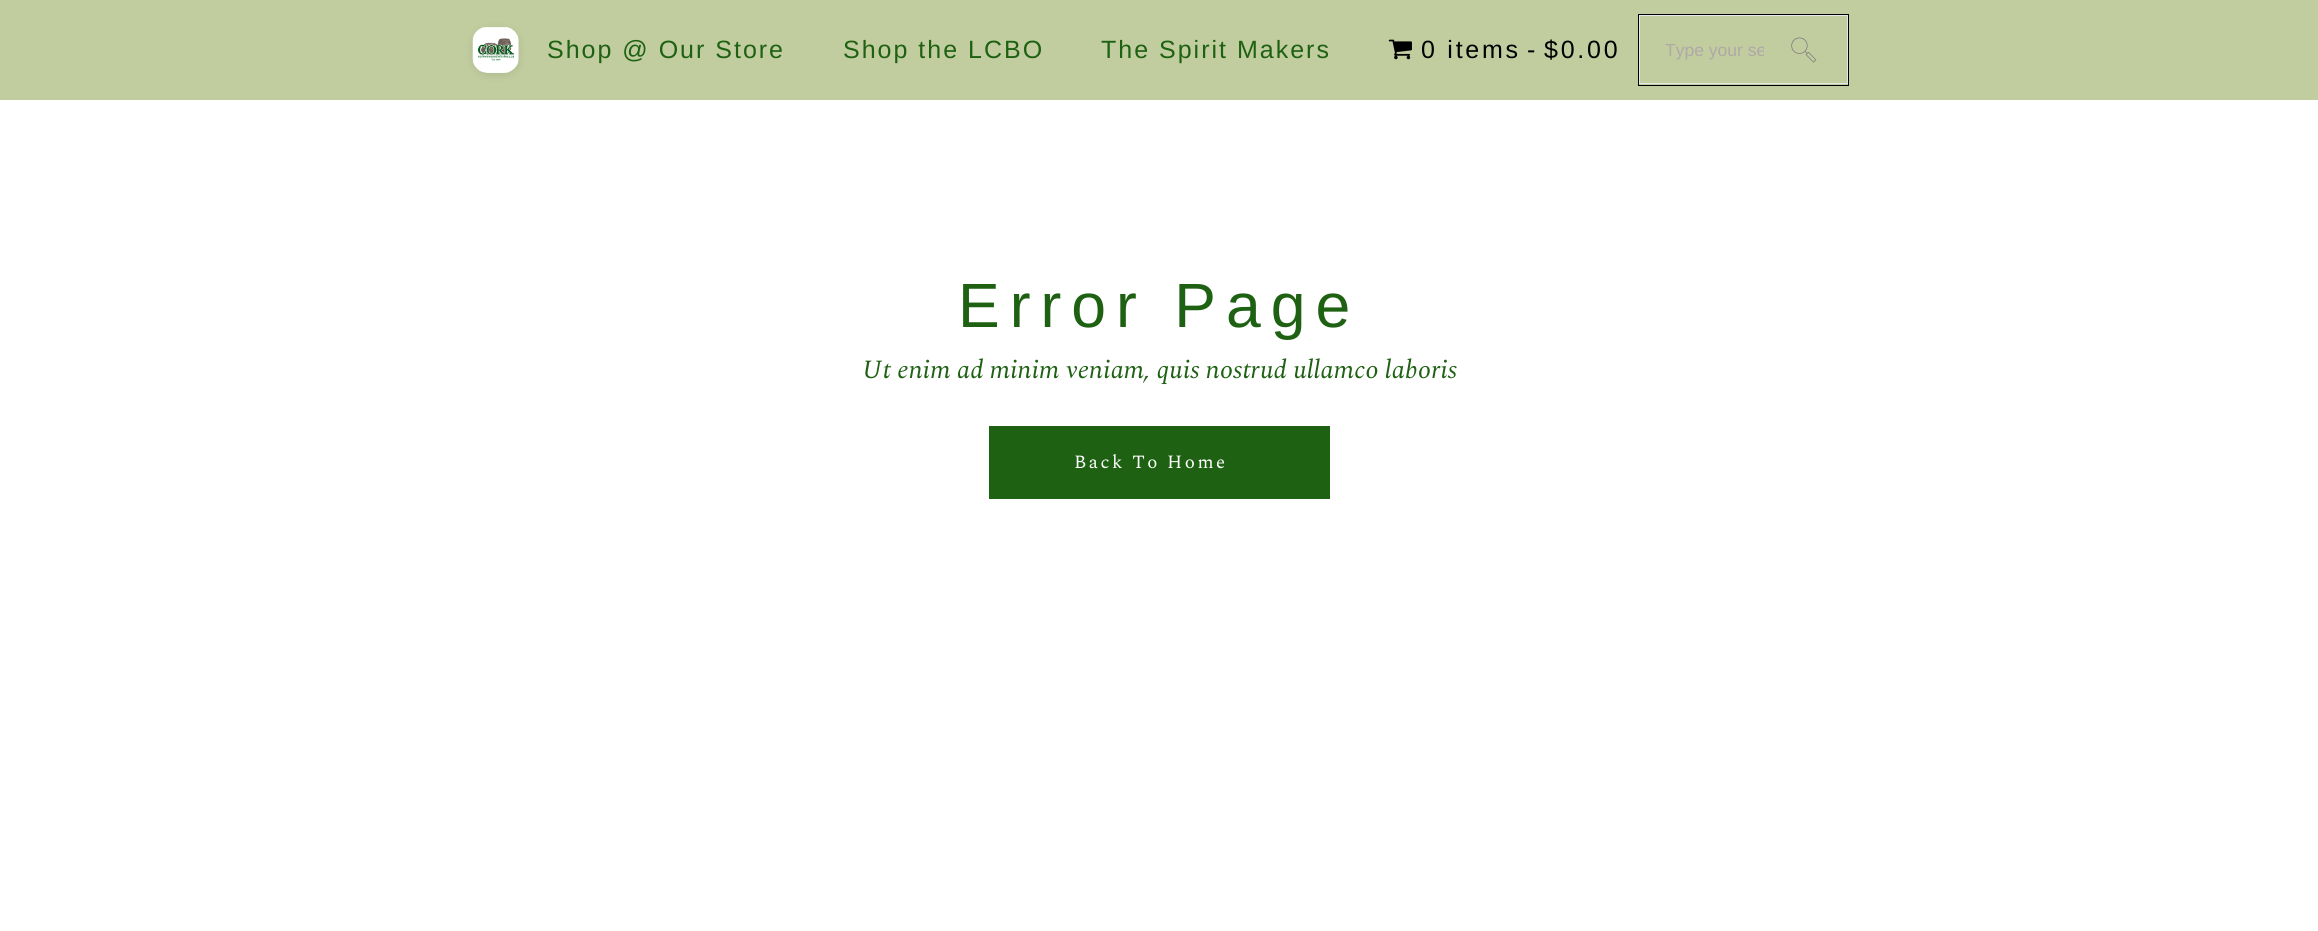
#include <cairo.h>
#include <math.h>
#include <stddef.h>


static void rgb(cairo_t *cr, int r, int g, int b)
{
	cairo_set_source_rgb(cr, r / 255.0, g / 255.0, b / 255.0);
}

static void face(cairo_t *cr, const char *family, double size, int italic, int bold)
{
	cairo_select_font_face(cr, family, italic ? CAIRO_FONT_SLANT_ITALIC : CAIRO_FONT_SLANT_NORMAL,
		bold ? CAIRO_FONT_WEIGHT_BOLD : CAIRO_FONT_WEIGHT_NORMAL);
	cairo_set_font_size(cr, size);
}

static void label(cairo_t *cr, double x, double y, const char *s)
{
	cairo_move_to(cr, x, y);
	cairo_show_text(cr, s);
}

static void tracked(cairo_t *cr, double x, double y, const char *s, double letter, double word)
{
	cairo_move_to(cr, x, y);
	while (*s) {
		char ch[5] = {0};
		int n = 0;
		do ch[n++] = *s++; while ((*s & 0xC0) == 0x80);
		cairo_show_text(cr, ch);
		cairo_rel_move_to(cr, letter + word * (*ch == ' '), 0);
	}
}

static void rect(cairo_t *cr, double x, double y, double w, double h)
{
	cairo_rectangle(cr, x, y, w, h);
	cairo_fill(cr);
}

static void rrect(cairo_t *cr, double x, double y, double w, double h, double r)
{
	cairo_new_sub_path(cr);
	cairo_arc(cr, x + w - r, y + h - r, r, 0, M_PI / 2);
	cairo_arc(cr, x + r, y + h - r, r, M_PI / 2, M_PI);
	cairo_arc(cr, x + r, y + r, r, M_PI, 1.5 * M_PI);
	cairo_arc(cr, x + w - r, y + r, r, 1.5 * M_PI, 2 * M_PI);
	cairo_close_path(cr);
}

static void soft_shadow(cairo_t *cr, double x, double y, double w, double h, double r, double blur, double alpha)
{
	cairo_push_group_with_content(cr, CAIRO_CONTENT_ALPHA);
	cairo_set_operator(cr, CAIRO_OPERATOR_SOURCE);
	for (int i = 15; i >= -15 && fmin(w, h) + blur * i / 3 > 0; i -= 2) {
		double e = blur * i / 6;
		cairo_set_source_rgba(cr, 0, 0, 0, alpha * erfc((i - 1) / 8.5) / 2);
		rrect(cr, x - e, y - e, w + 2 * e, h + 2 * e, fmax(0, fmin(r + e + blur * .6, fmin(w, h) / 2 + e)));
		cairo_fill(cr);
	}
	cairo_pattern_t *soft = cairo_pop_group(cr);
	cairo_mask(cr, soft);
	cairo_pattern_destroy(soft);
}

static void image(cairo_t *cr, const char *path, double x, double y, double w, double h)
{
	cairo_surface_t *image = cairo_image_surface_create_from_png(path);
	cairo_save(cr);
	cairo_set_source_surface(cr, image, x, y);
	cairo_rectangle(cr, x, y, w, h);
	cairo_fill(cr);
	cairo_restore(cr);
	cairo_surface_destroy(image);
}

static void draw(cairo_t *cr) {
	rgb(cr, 255, 255, 255);
	cairo_paint(cr);
	rgb(cr, 193, 205, 159);
	rect(cr, 0, 0, 2318, 100);
	rgb(cr, 0, 0, 0);
	soft_shadow(cr, 473, 29, 46, 46, 15, 4, 0.1);
	image(cr, "image0.png", 472, 27, 47, 46);
	face(cr, "Liberation Sans", 25, 0, 0);
	rgb(cr, 30, 97, 18);
	tracked(cr, 547, 58, "Shop @ Our Store", 2, 0);
	tracked(cr, 843, 58, "Shop the LCBO", 2, 0);
	tracked(cr, 1101, 58, "The Spirit Makers", 2, 0);
	image(cr, "image1.png", 1388, 39, 24, 21);
	rgb(cr, 0, 0, 0);
	tracked(cr, 1421, 58, "0 items", 2.75, 0);
	tracked(cr, 1527, 58, "-", 2.75, 0);
	tracked(cr, 1544, 58, "$0.00", 2.75, 0);
	cairo_rectangle(cr, 1638.5, 14.5, 210, 71);
	cairo_set_line_width(cr, 1);
	cairo_stroke(cr);
	cairo_rectangle(cr, 1639.5, 15.5, 208, 68);
	rgb(cr, 230, 230, 230);
	cairo_stroke(cr);
	cairo_save(cr);
	cairo_rectangle(cr, 1665, 40, 99, 20);
	cairo_clip(cr);
	face(cr, "Liberation Sans", 17.5, 0, 0);
	rgb(cr, 175, 168, 167);
	label(cr, 1665, 56, "Type your se");
	cairo_restore(cr);
	image(cr, "image2.png", 1791, 37, 26, 26);
	face(cr, "Liberation Sans", 62.5, 0, 0);
	rgb(cr, 30, 97, 18);
	tracked(cr, 958, 327, "Error Page", 10, 0);
	face(cr, "Spectral", 26.25, 1, 0);
	label(cr, 862, 378, "Ut enim ad minim veniam, quis nostrud ullamco laboris");
	rect(cr, 989, 426, 341, 73);
	face(cr, "Spectral SC", 18.75, 0, 0);
	rgb(cr, 255, 255, 255);
	tracked(cr, 1074, 468, "Back To Home", 2.5, 0);
}

int main(void) {
	cairo_surface_t *surface = cairo_image_surface_create(CAIRO_FORMAT_RGB24, 2318, 931);
	cairo_t *cr = cairo_create(surface);
	cairo_font_options_t *options = cairo_font_options_create();
	cairo_font_options_set_hint_metrics(options, CAIRO_HINT_METRICS_OFF);
	cairo_font_options_set_hint_style(options, CAIRO_HINT_STYLE_NONE);
	cairo_set_font_options(cr, options);
	cairo_set_miter_limit(cr, 4);
	draw(cr);
	cairo_surface_write_to_png(surface, "render.png");
	cairo_font_options_destroy(options);
	cairo_destroy(cr);
	cairo_surface_destroy(surface);
	return 0;
}
